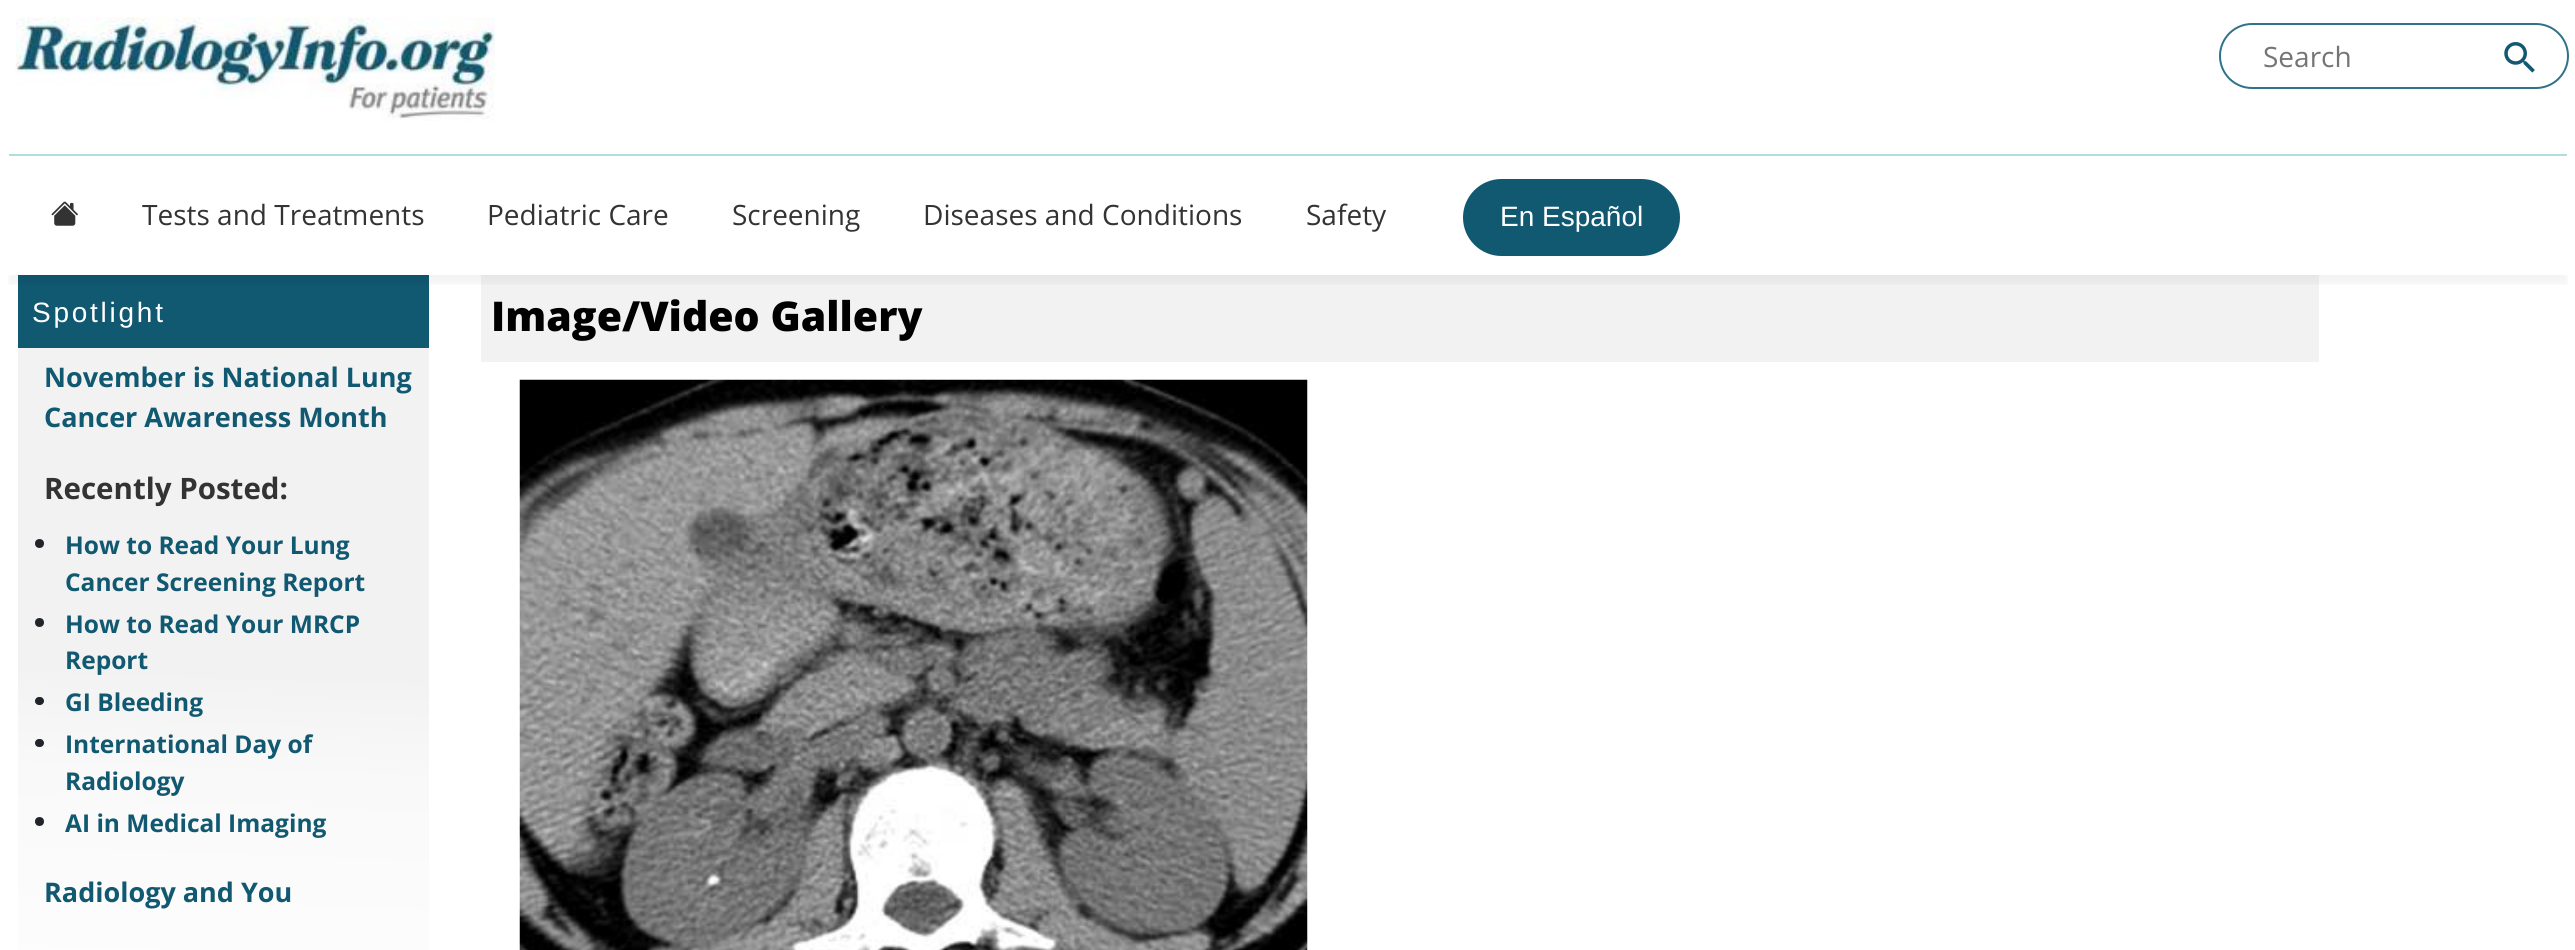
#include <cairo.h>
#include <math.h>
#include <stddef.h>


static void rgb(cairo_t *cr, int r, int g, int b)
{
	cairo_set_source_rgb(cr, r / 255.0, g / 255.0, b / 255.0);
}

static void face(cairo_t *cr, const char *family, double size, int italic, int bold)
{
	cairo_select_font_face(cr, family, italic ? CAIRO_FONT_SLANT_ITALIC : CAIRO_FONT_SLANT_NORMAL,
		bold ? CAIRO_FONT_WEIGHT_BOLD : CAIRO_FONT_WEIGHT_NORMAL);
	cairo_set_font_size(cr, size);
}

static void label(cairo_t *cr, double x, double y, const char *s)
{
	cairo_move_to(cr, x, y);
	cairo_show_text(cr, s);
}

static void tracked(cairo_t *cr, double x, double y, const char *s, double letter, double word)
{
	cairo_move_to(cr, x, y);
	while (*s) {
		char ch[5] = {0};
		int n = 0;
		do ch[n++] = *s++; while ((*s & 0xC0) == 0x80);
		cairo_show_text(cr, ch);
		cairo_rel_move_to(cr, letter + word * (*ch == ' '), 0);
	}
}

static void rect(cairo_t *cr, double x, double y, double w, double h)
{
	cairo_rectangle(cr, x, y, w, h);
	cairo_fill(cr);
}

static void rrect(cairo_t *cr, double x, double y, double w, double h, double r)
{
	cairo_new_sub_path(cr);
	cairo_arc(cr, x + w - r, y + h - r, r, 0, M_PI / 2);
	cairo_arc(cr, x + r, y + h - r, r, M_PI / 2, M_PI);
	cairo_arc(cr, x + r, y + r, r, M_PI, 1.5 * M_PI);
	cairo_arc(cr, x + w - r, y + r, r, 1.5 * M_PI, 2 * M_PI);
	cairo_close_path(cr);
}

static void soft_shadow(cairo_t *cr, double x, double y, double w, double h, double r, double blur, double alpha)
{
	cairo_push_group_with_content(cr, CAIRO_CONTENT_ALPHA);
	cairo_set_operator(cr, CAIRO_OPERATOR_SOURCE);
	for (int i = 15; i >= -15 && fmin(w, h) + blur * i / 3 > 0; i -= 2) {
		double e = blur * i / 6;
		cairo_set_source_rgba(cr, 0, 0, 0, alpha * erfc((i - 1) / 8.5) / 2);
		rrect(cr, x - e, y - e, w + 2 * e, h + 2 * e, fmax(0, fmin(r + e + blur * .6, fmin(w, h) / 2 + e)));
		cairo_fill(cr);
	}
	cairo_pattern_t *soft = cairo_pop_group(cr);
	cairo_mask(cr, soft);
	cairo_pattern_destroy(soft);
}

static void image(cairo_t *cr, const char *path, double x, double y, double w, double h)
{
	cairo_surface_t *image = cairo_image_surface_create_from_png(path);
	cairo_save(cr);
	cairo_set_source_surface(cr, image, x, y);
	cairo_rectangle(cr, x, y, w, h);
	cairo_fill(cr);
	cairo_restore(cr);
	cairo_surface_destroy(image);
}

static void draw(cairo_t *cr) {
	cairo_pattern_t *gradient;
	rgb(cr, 255, 255, 255);
	cairo_paint(cr);
	image(cr, "image0.png", 15, 17, 480, 104);
	rrect(cr, 2220, 24, 348, 64, 32);
	rgb(cr, 48, 114, 135);
	cairo_stroke(cr);
	face(cr, "Open Sans", 28, 0, 0);
	rgb(cr, 117, 117, 117);
	label(cr, 2263, 67, "Search");
	image(cr, "image1.png", 2504, 42, 31, 31);
	rgb(cr, 17, 88, 113);
	rect(cr, 18, 275, 411, 73);
	rgb(cr, 242, 242, 243);
	rect(cr, 481, 275, 1838, 87);
	cairo_save(cr);
	cairo_rectangle(cr, 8, 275, 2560, 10);
	cairo_clip(cr);
	rgb(cr, 0, 0, 0);
	soft_shadow(cr, 9, 163, 2558, 121, 0, 4.5, 0.05);
	cairo_restore(cr);
	rgb(cr, 178, 221, 221);
	rect(cr, 9, 154, 2558, 2);
	rgb(cr, 255, 255, 255);
	rect(cr, 30, 274, 1692, 1);
	image(cr, "image2.png", 51, 201, 27, 25);
	rgb(cr, 51, 51, 51);
	label(cr, 142, 225, "Tests and Treatments");
	label(cr, 487, 225, "Pediatric Care");
	label(cr, 732, 225, "Screening");
	label(cr, 923, 225, "Diseases and Conditions");
	label(cr, 1306, 225, "Safety");
	rgb(cr, 17, 88, 113);
	rrect(cr, 1463, 179, 217, 77, 38.5);
	cairo_fill(cr);
	face(cr, "Liberation Sans", 28, 0, 0);
	rgb(cr, 255, 255, 255);
	label(cr, 1500, 226, "En Español");
	tracked(cr, 32, 322, "Spotlight", 2.75, 0);
	gradient = cairo_pattern_create_linear(210, 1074, 236, 342);
	cairo_pattern_add_color_stop_rgba(gradient, 0, 1, 1, 1, 1);
	cairo_pattern_add_color_stop_rgba(gradient, 0.41, 0.976, 0.976, 0.976, 1);
	cairo_pattern_add_color_stop_rgba(gradient, 0.55, 0.949, 0.949, 0.953, 1);
	cairo_set_source(cr, gradient);
	cairo_pattern_destroy(gradient);
	rect(cr, 18, 348, 411, 602);
	face(cr, "Open Sans", 27, 0, 1);
	rgb(cr, 17, 88, 113);
	label(cr, 44, 387, "November is National Lung");
	label(cr, 44, 427, "Cancer Awareness Month");
	face(cr, "Open Sans", 29.5, 0, 1);
	rgb(cr, 51, 51, 51);
	label(cr, 44, 499, "Recently Posted:");
	rgb(cr, 33, 37, 41);
	cairo_new_path(cr);
	cairo_arc(cr, 39.5, 543.5, 4.5, 0, 2 * M_PI);
	cairo_fill(cr);
	face(cr, "Open Sans", 24.5, 0, 1);
	rgb(cr, 17, 88, 113);
	label(cr, 65, 554, "How to Read Your Lung");
	label(cr, 65, 591, "Cancer Screening Report");
	rgb(cr, 33, 37, 41);
	cairo_new_path(cr);
	cairo_arc(cr, 39.5, 622.5, 4.5, 0, 2 * M_PI);
	cairo_fill(cr);
	rgb(cr, 17, 88, 113);
	label(cr, 65, 633, "How to Read Your MRCP");
	label(cr, 65, 669, "Report");
	rgb(cr, 33, 37, 41);
	rrect(cr, 35, 697, 9, 8, 4);
	cairo_fill(cr);
	rgb(cr, 17, 88, 113);
	label(cr, 65, 711, "GI Bleeding");
	rgb(cr, 33, 37, 41);
	rrect(cr, 35, 739, 9, 8, 4);
	cairo_fill(cr);
	rgb(cr, 17, 88, 113);
	label(cr, 65, 753, "International Day of");
	label(cr, 65, 790, "Radiology");
	rgb(cr, 33, 37, 41);
	cairo_new_path(cr);
	cairo_arc(cr, 39.5, 821.5, 4.5, 0, 2 * M_PI);
	cairo_fill(cr);
	rgb(cr, 17, 88, 113);
	label(cr, 65, 832, "AI in Medical Imaging");
	face(cr, "Open Sans", 27, 0, 1);
	label(cr, 44, 902, "Radiology and You");
	face(cr, "Open Sans ExtraBold", 41, 0, 0);
	rgb(cr, 0, 0, 0);
	label(cr, 491, 331, "Image/Video Gallery");
	image(cr, "image3.png", 519, 379, 789, 571);
}

int main(void) {
	cairo_surface_t *surface = cairo_image_surface_create(CAIRO_FORMAT_RGB24, 2575, 950);
	cairo_t *cr = cairo_create(surface);
	cairo_font_options_t *options = cairo_font_options_create();
	cairo_font_options_set_hint_metrics(options, CAIRO_HINT_METRICS_OFF);
	cairo_font_options_set_hint_style(options, CAIRO_HINT_STYLE_NONE);
	cairo_set_font_options(cr, options);
	cairo_set_miter_limit(cr, 4);
	draw(cr);
	cairo_surface_write_to_png(surface, "render.png");
	cairo_font_options_destroy(options);
	cairo_destroy(cr);
	cairo_surface_destroy(surface);
	return 0;
}
